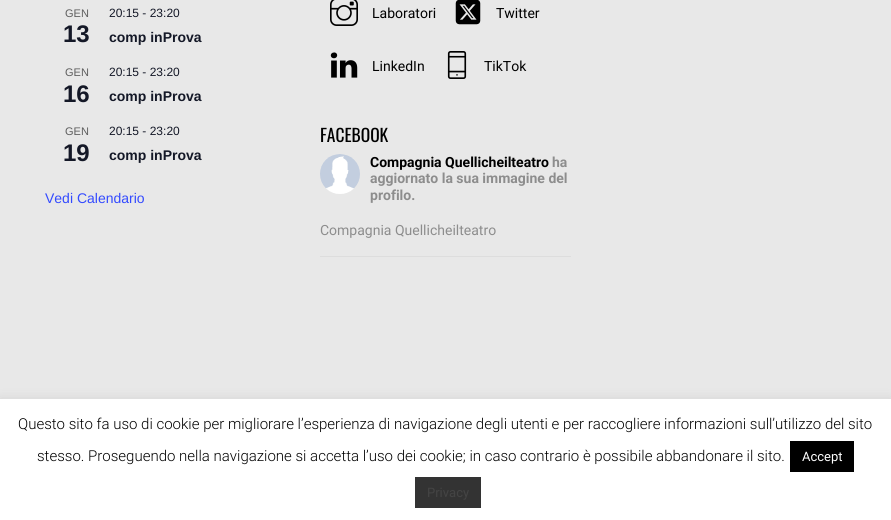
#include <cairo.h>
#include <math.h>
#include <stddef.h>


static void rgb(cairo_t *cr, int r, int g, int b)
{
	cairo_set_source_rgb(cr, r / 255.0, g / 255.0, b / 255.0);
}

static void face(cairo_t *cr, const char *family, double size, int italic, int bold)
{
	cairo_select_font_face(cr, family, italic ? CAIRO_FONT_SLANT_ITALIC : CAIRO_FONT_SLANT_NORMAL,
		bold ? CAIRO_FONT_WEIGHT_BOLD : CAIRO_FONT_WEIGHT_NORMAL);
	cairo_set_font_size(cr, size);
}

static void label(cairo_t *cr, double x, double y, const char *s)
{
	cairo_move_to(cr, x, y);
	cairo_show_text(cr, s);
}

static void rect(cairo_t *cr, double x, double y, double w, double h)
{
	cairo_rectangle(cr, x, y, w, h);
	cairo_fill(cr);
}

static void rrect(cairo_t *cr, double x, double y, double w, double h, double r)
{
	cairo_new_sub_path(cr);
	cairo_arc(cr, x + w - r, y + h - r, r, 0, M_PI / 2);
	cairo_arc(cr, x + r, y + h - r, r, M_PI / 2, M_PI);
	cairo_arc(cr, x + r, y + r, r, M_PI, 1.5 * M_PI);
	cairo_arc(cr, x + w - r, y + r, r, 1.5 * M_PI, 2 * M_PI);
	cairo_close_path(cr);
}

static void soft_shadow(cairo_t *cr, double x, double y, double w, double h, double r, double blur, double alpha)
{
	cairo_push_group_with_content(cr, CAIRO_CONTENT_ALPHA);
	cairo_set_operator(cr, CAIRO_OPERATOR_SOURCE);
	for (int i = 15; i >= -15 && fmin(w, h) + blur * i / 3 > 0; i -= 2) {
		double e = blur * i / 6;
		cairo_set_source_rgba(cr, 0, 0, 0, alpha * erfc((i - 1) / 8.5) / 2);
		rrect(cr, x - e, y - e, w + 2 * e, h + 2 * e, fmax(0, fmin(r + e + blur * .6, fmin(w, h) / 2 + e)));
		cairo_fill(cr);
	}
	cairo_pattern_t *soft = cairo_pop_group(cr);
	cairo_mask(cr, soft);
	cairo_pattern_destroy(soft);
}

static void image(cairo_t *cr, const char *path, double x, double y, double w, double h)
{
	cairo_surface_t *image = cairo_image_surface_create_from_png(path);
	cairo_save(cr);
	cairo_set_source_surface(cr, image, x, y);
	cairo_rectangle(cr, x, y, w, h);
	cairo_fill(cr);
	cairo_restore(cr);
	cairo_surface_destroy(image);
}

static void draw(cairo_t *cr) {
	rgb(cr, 232, 232, 232);
	cairo_paint(cr);
	face(cr, "Liberation Sans", 11, 0, 0);
	rgb(cr, 93, 93, 93);
	label(cr, 65, 17, "GEN");
	face(cr, "Liberation Sans", 24, 0, 1);
	rgb(cr, 20, 24, 39);
	label(cr, 63, 42, "13");
	face(cr, "Liberation Sans", 12, 0, 0);
	label(cr, 109, 17, "20:15 - 23:20");
	face(cr, "Liberation Sans", 14, 0, 1);
	label(cr, 109, 42, "comp inProva");
	face(cr, "Liberation Sans", 11, 0, 0);
	rgb(cr, 93, 93, 93);
	label(cr, 65, 76, "GEN");
	face(cr, "Liberation Sans", 24, 0, 1);
	rgb(cr, 20, 24, 39);
	label(cr, 63, 102, "16");
	face(cr, "Liberation Sans", 12, 0, 0);
	label(cr, 109, 76, "20:15 - 23:20");
	face(cr, "Liberation Sans", 14, 0, 1);
	label(cr, 109, 101, "comp inProva");
	face(cr, "Liberation Sans", 11, 0, 0);
	rgb(cr, 93, 93, 93);
	label(cr, 65, 135, "GEN");
	face(cr, "Liberation Sans", 24, 0, 1);
	rgb(cr, 20, 24, 39);
	label(cr, 63, 161, "19");
	face(cr, "Liberation Sans", 12, 0, 0);
	label(cr, 109, 135, "20:15 - 23:20");
	face(cr, "Liberation Sans", 14, 0, 1);
	label(cr, 109, 160, "comp inProva");
	face(cr, "Liberation Sans", 14, 0, 0);
	rgb(cr, 51, 74, 255);
	label(cr, 45, 203, "Vedi Calendario");
	image(cr, "image0.png", 330, 0, 28, 26);
	face(cr, "Roboto", 14, 0, 0);
	rgb(cr, 0, 0, 0);
	label(cr, 372, 18, "Laboratori");
	image(cr, "image1.png", 455, 0, 26, 25);
	label(cr, 496, 18, "Twitter");
	image(cr, "image2.png", 330, 52, 28, 26);
	label(cr, 372, 71, "LinkedIn");
	image(cr, "image3.png", 447, 51, 20, 28);
	label(cr, 484, 71, "TikTok");
	face(cr, "Oswald", 17.5, 0, 0);
	label(cr, 320, 142, "FACEBOOK");
	rgb(cr, 221, 221, 221);
	rect(cr, 320, 256, 251, 1);
	image(cr, "image4.png", 320, 154, 40, 40);
	face(cr, "Roboto", 14, 0, 1);
	rgb(cr, 0, 0, 0);
	label(cr, 370, 167, "Compagnia Quellicheilteatro");
	rgb(cr, 141, 141, 141);
	label(cr, 552, 167, "ha");
	label(cr, 370, 183, "aggiornato la sua immagine del");
	label(cr, 370, 200, "profilo.");
	face(cr, "Roboto", 14, 0, 0);
	label(cr, 320, 235, "Compagnia Quellicheilteatro");
	rgb(cr, 172, 171, 171);
	soft_shadow(cr, 0, 398, 891, 121, 0, 5, 0.3);
	rgb(cr, 255, 255, 255);
	rect(cr, 0, 399, 891, 121);
	face(cr, "Roboto Light", 15, 0, 0);
	rgb(cr, 0, 0, 0);
	label(cr, 18, 429, "Questo sito fa uso di cookie per migliorare l’esperienza di navigazione degli utenti e per raccogliere informazioni sull’utilizzo del sito");
	label(cr, 37, 461, "stesso. Proseguendo nella navigazione si accetta l’uso dei cookie; in caso contrario è possibile abbandonare il sito.");
	rect(cr, 790, 441, 64, 31);
	face(cr, "Roboto", 13, 0, 0);
	rgb(cr, 255, 255, 255);
	label(cr, 802, 461, "Accept");
	rgb(cr, 51, 51, 51);
	rect(cr, 415, 477, 66, 31);
	rgb(cr, 68, 68, 68);
	label(cr, 427, 497, "Privacy");
}

int main(void) {
	cairo_surface_t *surface = cairo_image_surface_create(CAIRO_FORMAT_RGB24, 891, 520);
	cairo_t *cr = cairo_create(surface);
	cairo_font_options_t *options = cairo_font_options_create();
	cairo_font_options_set_hint_metrics(options, CAIRO_HINT_METRICS_OFF);
	cairo_font_options_set_hint_style(options, CAIRO_HINT_STYLE_NONE);
	cairo_set_font_options(cr, options);
	cairo_set_miter_limit(cr, 4);
	draw(cr);
	cairo_surface_write_to_png(surface, "render.png");
	cairo_font_options_destroy(options);
	cairo_destroy(cr);
	cairo_surface_destroy(surface);
	return 0;
}
